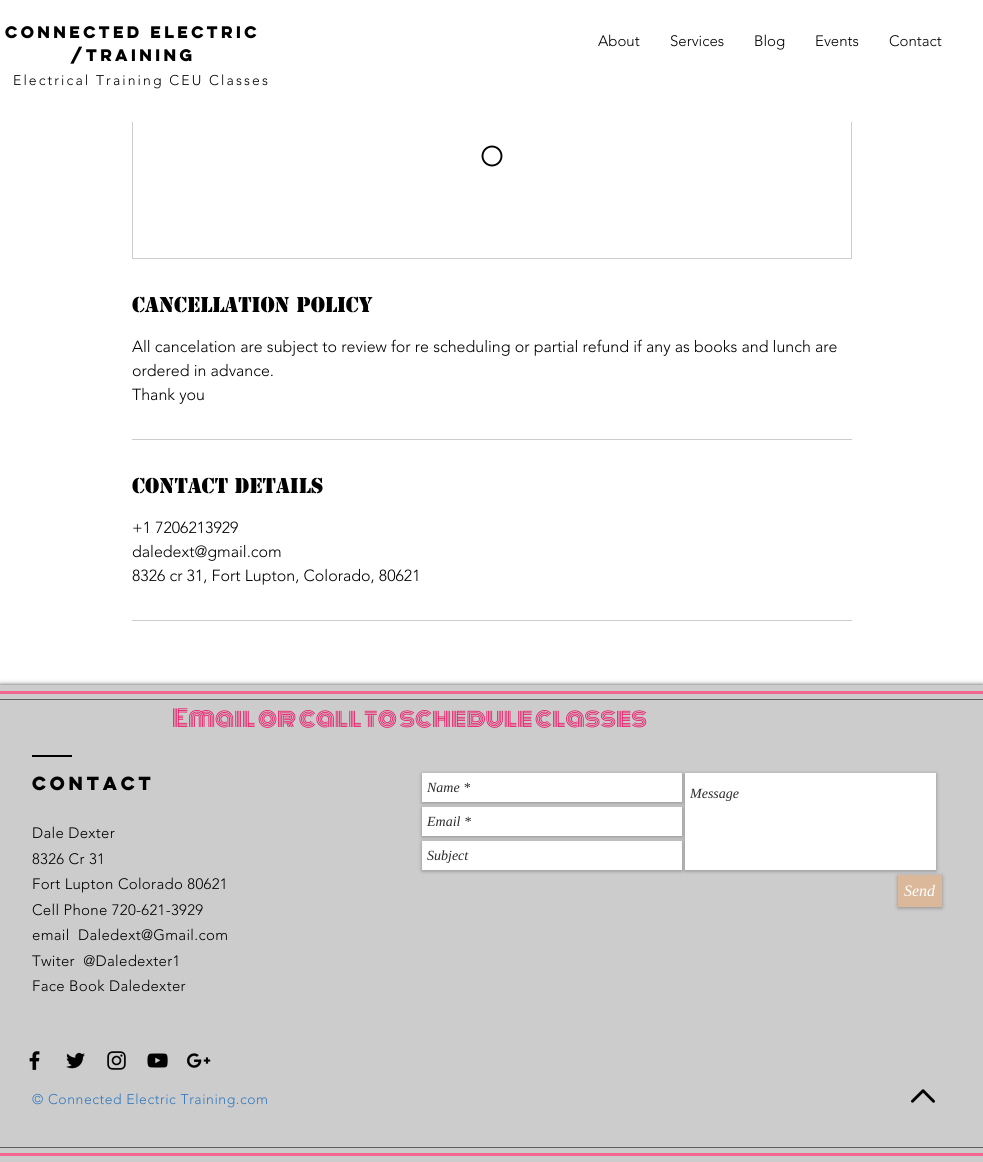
#include <cairo.h>
#include <math.h>
#include <stddef.h>


static void rgb(cairo_t *cr, int r, int g, int b)
{
	cairo_set_source_rgb(cr, r / 255.0, g / 255.0, b / 255.0);
}

static void face(cairo_t *cr, const char *family, double size, int italic, int bold)
{
	cairo_select_font_face(cr, family, italic ? CAIRO_FONT_SLANT_ITALIC : CAIRO_FONT_SLANT_NORMAL,
		bold ? CAIRO_FONT_WEIGHT_BOLD : CAIRO_FONT_WEIGHT_NORMAL);
	cairo_set_font_size(cr, size);
}

static void label(cairo_t *cr, double x, double y, const char *s)
{
	cairo_move_to(cr, x, y);
	cairo_show_text(cr, s);
}

static void tracked(cairo_t *cr, double x, double y, const char *s, double letter, double word)
{
	cairo_move_to(cr, x, y);
	while (*s) {
		char ch[5] = {0};
		int n = 0;
		do ch[n++] = *s++; while ((*s & 0xC0) == 0x80);
		cairo_show_text(cr, ch);
		cairo_rel_move_to(cr, letter + word * (*ch == ' '), 0);
	}
}

static void rect(cairo_t *cr, double x, double y, double w, double h)
{
	cairo_rectangle(cr, x, y, w, h);
	cairo_fill(cr);
}

static void rrect(cairo_t *cr, double x, double y, double w, double h, double r)
{
	cairo_new_sub_path(cr);
	cairo_arc(cr, x + w - r, y + h - r, r, 0, M_PI / 2);
	cairo_arc(cr, x + r, y + h - r, r, M_PI / 2, M_PI);
	cairo_arc(cr, x + r, y + r, r, M_PI, 1.5 * M_PI);
	cairo_arc(cr, x + w - r, y + r, r, 1.5 * M_PI, 2 * M_PI);
	cairo_close_path(cr);
}

static void soft_shadow(cairo_t *cr, double x, double y, double w, double h, double r, double blur, double alpha)
{
	cairo_push_group_with_content(cr, CAIRO_CONTENT_ALPHA);
	cairo_set_operator(cr, CAIRO_OPERATOR_SOURCE);
	for (int i = 15; i >= -15 && fmin(w, h) + blur * i / 3 > 0; i -= 2) {
		double e = blur * i / 6;
		cairo_set_source_rgba(cr, 0, 0, 0, alpha * erfc((i - 1) / 8.5) / 2);
		rrect(cr, x - e, y - e, w + 2 * e, h + 2 * e, fmax(0, fmin(r + e + blur * .6, fmin(w, h) / 2 + e)));
		cairo_fill(cr);
	}
	cairo_pattern_t *soft = cairo_pop_group(cr);
	cairo_mask(cr, soft);
	cairo_pattern_destroy(soft);
}

static void image(cairo_t *cr, const char *path, double x, double y, double w, double h)
{
	cairo_surface_t *image = cairo_image_surface_create_from_png(path);
	cairo_save(cr);
	cairo_set_source_surface(cr, image, x, y);
	cairo_rectangle(cr, x, y, w, h);
	cairo_fill(cr);
	cairo_restore(cr);
	cairo_surface_destroy(image);
}

static void draw(cairo_t *cr) {
	rgb(cr, 255, 255, 255);
	cairo_paint(cr);
	face(cr, "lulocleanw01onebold", 15, 0, 1);
	rgb(cr, 0, 0, 0);
	label(cr, 5, 38, "Connected Electric");
	cairo_rectangle(cr, 132.5, 55.5, 719, 203);
	rgb(cr, 204, 204, 204);
	cairo_set_line_width(cr, 1);
	cairo_stroke(cr);
	rgb(cr, 255, 255, 255);
	rect(cr, 132, 55, 720, 67);
	rgb(cr, 0, 0, 0);
	label(cr, 70, 61, "/Training");
	face(cr, "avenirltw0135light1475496 Light", 15, 0, 0);
	label(cr, 598, 46, "About");
	label(cr, 670, 46, "Services");
	label(cr, 754, 46, "Blog");
	label(cr, 815, 46, "Events");
	label(cr, 889, 46, "Contact");
	face(cr, "avenirltw0135light1475496 Light", 14, 0, 0);
	tracked(cr, 13, 85, "Electrical Training CEU Classes", 2.1, 0);
	cairo_new_path(cr);
	cairo_arc(cr, 492, 156, 9.5, 0, 2 * M_PI);
	cairo_set_line_width(cr, 1.9);
	cairo_stroke(cr);
	face(cr, "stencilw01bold", 20, 0, 1);
	label(cr, 132, 312, "Cancellation Policy");
	face(cr, "avenirltw0135light1475496 Light", 16, 0, 0);
	label(cr, 132, 352, "All cancelation are subject to review for re scheduling or partial refund if any as books and lunch are");
	label(cr, 132, 376, "ordered in advance.");
	label(cr, 132, 400, "Thank you");
	rgb(cr, 204, 204, 204);
	rect(cr, 132, 439, 720, 1);
	face(cr, "stencilw01bold", 20, 0, 1);
	rgb(cr, 0, 0, 0);
	label(cr, 132, 493, "Contact Details");
	face(cr, "avenirltw0135light1475496 Light", 16, 0, 0);
	label(cr, 132, 533, "+1 7206213929");
	label(cr, 132, 557, "daledext@gmail.com");
	label(cr, 132, 581, "8326 cr 31, Fort Lupton, Colorado, 80621");
	rgb(cr, 204, 204, 204);
	rect(cr, 132, 620, 720, 1);
	rgb(cr, 0, 0, 0);
	soft_shadow(cr, 0, 685, 983, 477, 0, 2.5, 0.7);
	rgb(cr, 204, 204, 204);
	rect(cr, 0, 685, 983, 477);
	rgb(cr, 242, 102, 143);
	rect(cr, 0, 691, 983, 3);
	rect(cr, 0, 1153, 983, 3);
	rgb(cr, 96, 94, 94);
	rect(cr, 0, 699, 983, 1);
	rect(cr, 0, 1147, 983, 1);
	face(cr, "Monoton", 23, 0, 0);
	rgb(cr, 237, 21, 102);
	label(cr, 172, 727, "Email or call to schedule classes");
	rgb(cr, 0, 0, 0);
	rect(cr, 32, 755, 40, 2);
	face(cr, "lulocleanw01onebold", 17, 0, 1);
	label(cr, 32, 790, "Contact");
	rgb(cr, 0, 0, 0);
	soft_shadow(cr, 422, 774, 260, 29, 0, 2, 0.3);
	rgb(cr, 255, 255, 255);
	rect(cr, 422, 773, 260, 29);
	face(cr, "Liberation Serif", 14, 1, 0);
	rgb(cr, 42, 42, 42);
	label(cr, 427, 792, "Name *");
	rgb(cr, 0, 0, 0);
	soft_shadow(cr, 422, 808, 260, 29, 0, 2, 0.3);
	rgb(cr, 255, 255, 255);
	rect(cr, 422, 807, 260, 29);
	rgb(cr, 0, 0, 0);
	soft_shadow(cr, 422, 842, 260, 29, 0, 2, 0.3);
	rgb(cr, 255, 255, 255);
	rect(cr, 422, 841, 260, 29);
	rgb(cr, 0, 0, 0);
	soft_shadow(cr, 685, 774, 251, 97, 0, 2, 0.3);
	rgb(cr, 255, 255, 255);
	rect(cr, 685, 773, 251, 97);
	rgb(cr, 42, 42, 42);
	label(cr, 690, 798, "Message");
	label(cr, 427, 826, "Email *");
	label(cr, 427, 860, "Subject");
	rgb(cr, 0, 0, 0);
	soft_shadow(cr, 898, 876, 44, 32, 0, 2, 0.3);
	rgb(cr, 219, 184, 154);
	rect(cr, 898, 875, 44, 32);
	face(cr, "Liberation Serif", 16, 1, 0);
	rgb(cr, 255, 255, 255);
	label(cr, 904, 896, "Send");
	face(cr, "avenirltw0135light1475496 Light", 15, 0, 0);
	rgb(cr, 0, 0, 0);
	tracked(cr, 32, 838, "Dale Dexter", 0.3, 0);
	tracked(cr, 32, 864, "8326 Cr 31", 0.3, 0);
	tracked(cr, 32, 889, "Fort Lupton Colorado 80621", 0.3, 0);
	tracked(cr, 32, 915, "Cell Phone 720-621-3929", 0.3, 0);
	tracked(cr, 32, 940, "email", 0.3, 0);
	tracked(cr, 78, 940, "Daledext@Gmail.com", 0.3, 0);
	tracked(cr, 32, 966, "Twiter  @Daledexter1", 0.3, 0);
	tracked(cr, 32, 991, "Face Book Daledexter", 0.3, 0);
	image(cr, "image0.png", 29, 1051, 11, 20);
	image(cr, "image1.png", 66, 1052, 19, 17);
	image(cr, "image2.png", 107, 1051, 19, 19);
	image(cr, "image3.png", 147, 1053, 21, 15);
	image(cr, "image4.png", 186, 1053, 25, 15);
	face(cr, "avenirltw0135light1475496 Light", 14, 0, 0);
	rgb(cr, 48, 120, 190);
	tracked(cr, 32, 1104, "© Connected Electric Training.com", 0.55, 0);
	image(cr, "image5.png", 911, 1089, 24, 14);
}

int main(void) {
	cairo_surface_t *surface = cairo_image_surface_create(CAIRO_FORMAT_RGB24, 983, 1162);
	cairo_t *cr = cairo_create(surface);
	cairo_font_options_t *options = cairo_font_options_create();
	cairo_font_options_set_hint_metrics(options, CAIRO_HINT_METRICS_OFF);
	cairo_font_options_set_hint_style(options, CAIRO_HINT_STYLE_NONE);
	cairo_set_font_options(cr, options);
	cairo_set_miter_limit(cr, 4);
	draw(cr);
	cairo_surface_write_to_png(surface, "render.png");
	cairo_font_options_destroy(options);
	cairo_destroy(cr);
	cairo_surface_destroy(surface);
	return 0;
}
